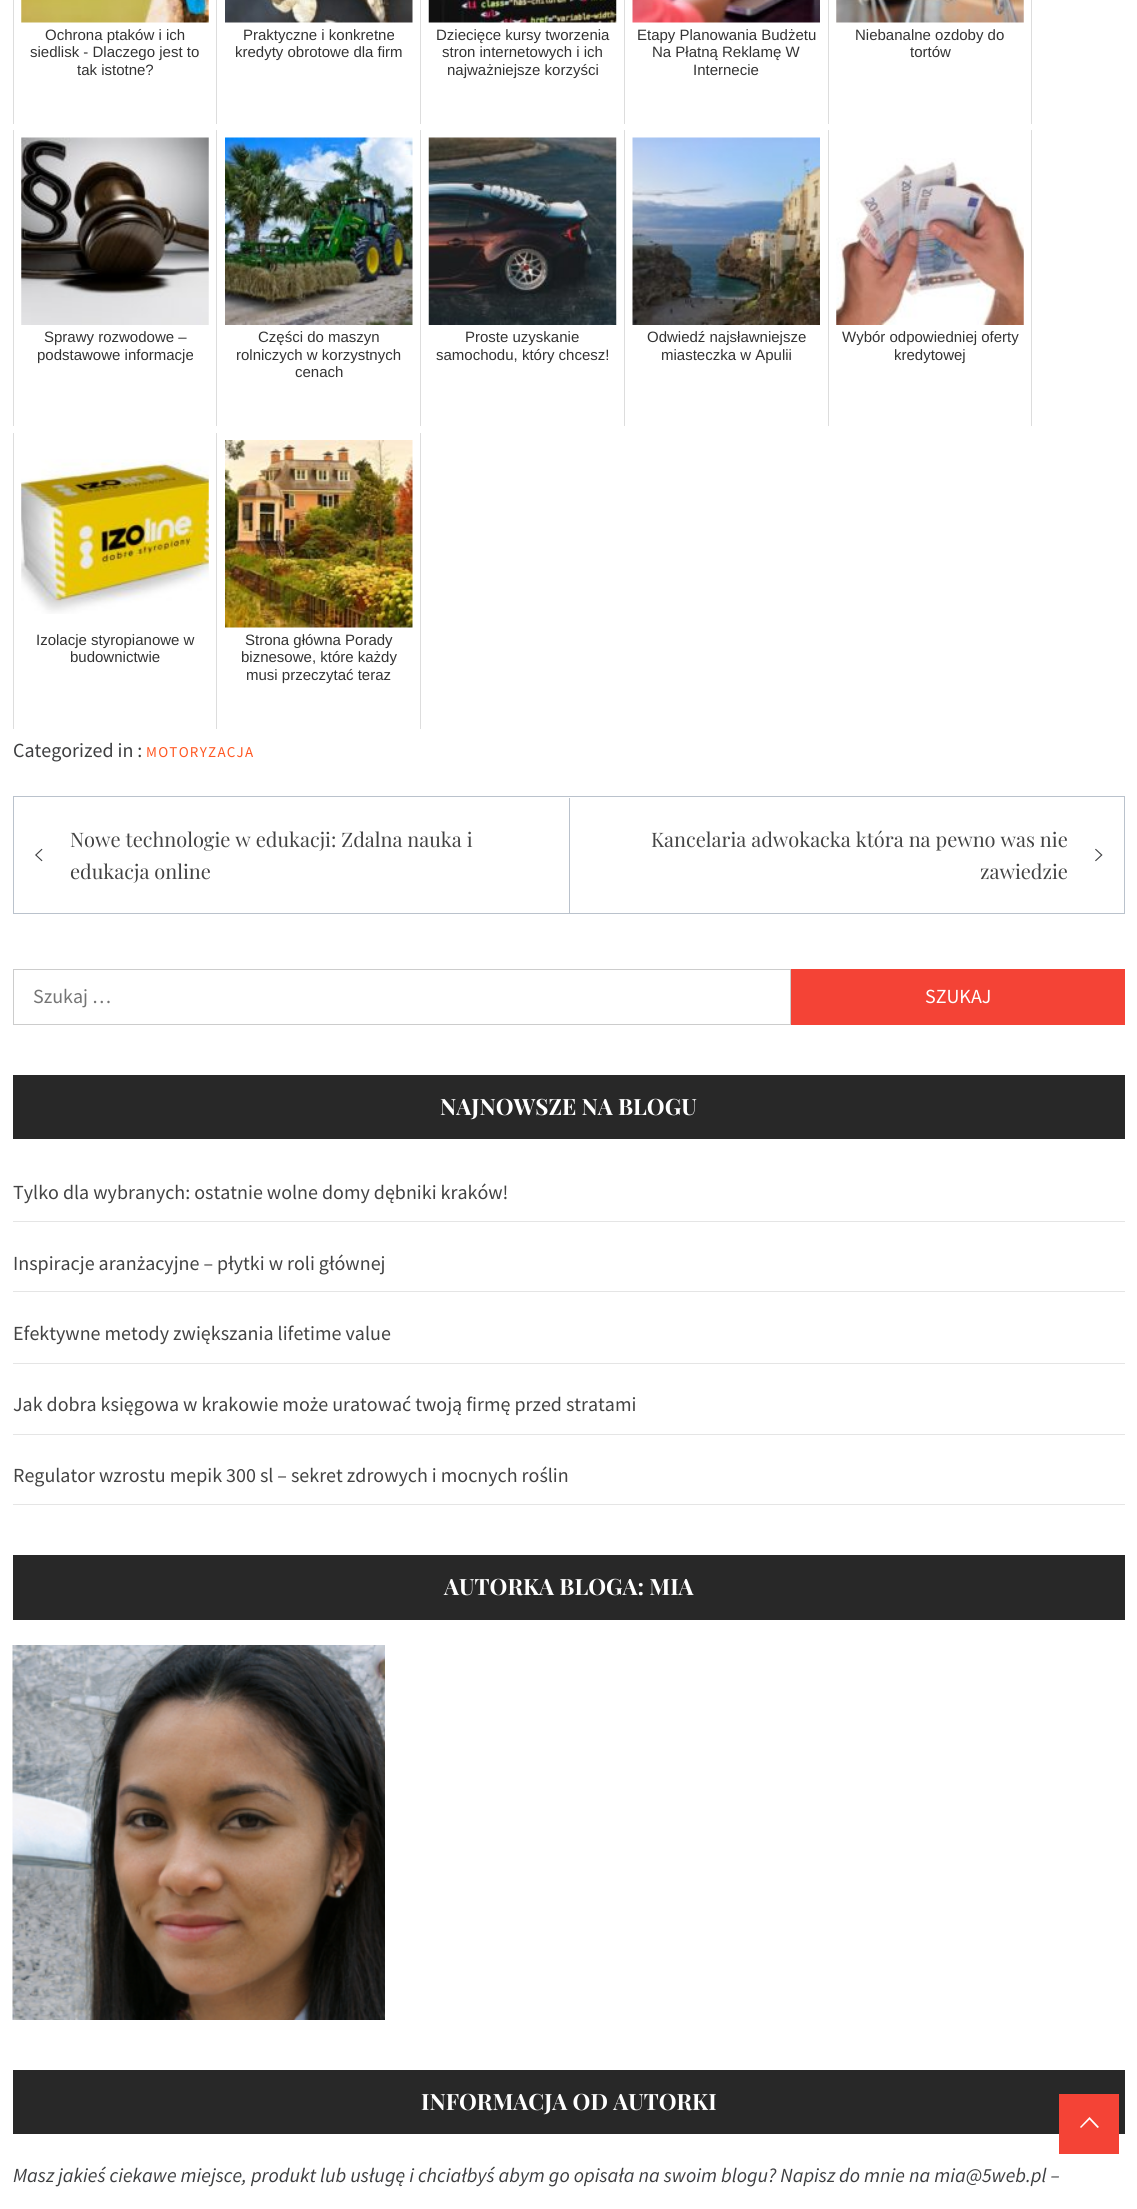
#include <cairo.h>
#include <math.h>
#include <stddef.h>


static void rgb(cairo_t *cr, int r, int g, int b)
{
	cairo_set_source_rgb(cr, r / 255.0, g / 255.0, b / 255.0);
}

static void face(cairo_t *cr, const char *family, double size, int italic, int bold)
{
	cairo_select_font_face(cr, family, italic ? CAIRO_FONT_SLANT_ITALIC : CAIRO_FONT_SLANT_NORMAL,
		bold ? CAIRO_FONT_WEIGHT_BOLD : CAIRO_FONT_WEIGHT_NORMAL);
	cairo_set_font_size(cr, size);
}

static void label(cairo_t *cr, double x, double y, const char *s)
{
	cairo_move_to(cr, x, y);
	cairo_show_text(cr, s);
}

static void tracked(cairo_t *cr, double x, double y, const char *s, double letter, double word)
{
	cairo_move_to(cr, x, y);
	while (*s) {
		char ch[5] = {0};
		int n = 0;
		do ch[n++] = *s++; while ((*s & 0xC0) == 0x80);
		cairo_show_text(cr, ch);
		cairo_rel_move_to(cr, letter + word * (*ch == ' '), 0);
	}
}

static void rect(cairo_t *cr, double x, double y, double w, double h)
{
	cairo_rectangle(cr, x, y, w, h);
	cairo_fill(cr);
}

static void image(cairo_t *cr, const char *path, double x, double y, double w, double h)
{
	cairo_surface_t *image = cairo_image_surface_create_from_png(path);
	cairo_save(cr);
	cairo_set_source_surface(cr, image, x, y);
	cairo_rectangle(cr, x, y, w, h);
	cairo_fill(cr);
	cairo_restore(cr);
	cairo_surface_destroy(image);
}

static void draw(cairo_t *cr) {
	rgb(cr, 255, 255, 255);
	cairo_paint(cr);
	rgb(cr, 221, 221, 221);
	rect(cr, 13, 0, 1, 124);
	image(cr, "image0.png", 21, 0, 188, 23);
	face(cr, "Liberation Sans", 15, 0, 0);
	rgb(cr, 51, 51, 51);
	label(cr, 45, 40, "Ochrona ptaków i ich");
	label(cr, 30, 57, "siedlisk - Dlaczego jest to");
	label(cr, 77, 75, "tak istotne?");
	rgb(cr, 221, 221, 221);
	rect(cr, 216, 0, 1, 124);
	image(cr, "image1.png", 225, 0, 188, 23);
	rgb(cr, 51, 51, 51);
	label(cr, 243, 40, "Praktyczne i konkretne");
	label(cr, 235, 57, "kredyty obrotowe dla firm");
	rgb(cr, 221, 221, 221);
	rect(cr, 420, 0, 1, 124);
	image(cr, "image2.png", 428, 0, 189, 23);
	rgb(cr, 51, 51, 51);
	label(cr, 436, 40, "Dziecięce kursy tworzenia");
	label(cr, 442, 57, "stron internetowych i ich");
	label(cr, 447, 75, "najważniejsze korzyści");
	rgb(cr, 221, 221, 221);
	rect(cr, 624, 0, 1, 124);
	image(cr, "image3.png", 632, 0, 188, 23);
	rgb(cr, 51, 51, 51);
	label(cr, 637, 40, "Etapy Planowania Budżetu");
	label(cr, 652, 57, "Na Płatną Reklamę W");
	label(cr, 693, 75, "Internecie");
	rgb(cr, 221, 221, 221);
	rect(cr, 1031, 0, 1, 124);
	rect(cr, 828, 0, 1, 124);
	image(cr, "image4.png", 836, 0, 188, 23);
	rgb(cr, 51, 51, 51);
	label(cr, 855, 40, "Niebanalne ozdoby do");
	label(cr, 910, 57, "tortów");
	rgb(cr, 221, 221, 221);
	rect(cr, 13, 130, 1, 296);
	image(cr, "image5.png", 21, 137, 188, 188);
	rgb(cr, 51, 51, 51);
	label(cr, 44, 342, "Sprawy rozwodowe –");
	label(cr, 37, 360, "podstawowe informacje");
	rgb(cr, 221, 221, 221);
	rect(cr, 216, 130, 1, 296);
	image(cr, "image6.png", 225, 137, 188, 188);
	rgb(cr, 51, 51, 51);
	label(cr, 258, 342, "Części do maszyn");
	label(cr, 236, 360, "rolniczych w korzystnych");
	label(cr, 295, 377, "cenach");
	rgb(cr, 221, 221, 221);
	rect(cr, 420, 130, 1, 296);
	image(cr, "image7.png", 428, 137, 189, 188);
	rgb(cr, 51, 51, 51);
	label(cr, 465, 342, "Proste uzyskanie");
	label(cr, 436, 360, "samochodu, który chcesz!");
	rgb(cr, 221, 221, 221);
	rect(cr, 624, 130, 1, 296);
	image(cr, "image8.png", 632, 137, 188, 188);
	rgb(cr, 51, 51, 51);
	label(cr, 647, 342, "Odwiedź najsławniejsze");
	label(cr, 661, 360, "miasteczka w Apulii");
	rgb(cr, 221, 221, 221);
	rect(cr, 1031, 130, 1, 296);
	rect(cr, 828, 130, 1, 296);
	image(cr, "image9.png", 836, 158, 188, 167);
	rgb(cr, 51, 51, 51);
	label(cr, 842, 342, "Wybór odpowiedniej oferty");
	label(cr, 894, 360, "kredytowej");
	rgb(cr, 221, 221, 221);
	rect(cr, 13, 433, 1, 296);
	image(cr, "image10.png", 21, 459, 188, 155);
	rgb(cr, 51, 51, 51);
	label(cr, 36, 645, "Izolacje styropianowe w");
	label(cr, 70, 662, "budownictwie");
	rgb(cr, 221, 221, 221);
	rect(cr, 420, 433, 1, 296);
	rect(cr, 216, 433, 1, 296);
	image(cr, "image11.png", 225, 440, 188, 188);
	rgb(cr, 51, 51, 51);
	label(cr, 245, 645, "Strona główna Porady");
	label(cr, 241, 662, "biznesowe, które każdy");
	label(cr, 246, 680, "musi przeczytać teraz");
	face(cr, "Source Sans Pro", 20, 0, 0);
	rgb(cr, 61, 62, 64);
	label(cr, 13, 757, "Categorized in :");
	face(cr, "Source Sans Pro", 15, 0, 0);
	rgb(cr, 255, 87, 34);
	tracked(cr, 146, 757, "MOTORYZACJA", 1.25, 0);
	cairo_rectangle(cr, 13.5, 796.5, 1111, 117);
	rgb(cr, 186, 194, 204);
	cairo_set_line_width(cr, 1);
	cairo_stroke(cr);
	rect(cr, 569, 798, 1, 115);
	image(cr, "image12.png", 35, 848, 8, 14);
	face(cr, "Playfair Display", 20, 0, 0);
	rgb(cr, 67, 67, 67);
	label(cr, 70, 847, "Nowe technologie w edukacji: Zdalna nauka i");
	label(cr, 70, 879, "edukacja online");
	label(cr, 651, 847, "Kancelaria adwokacka która na pewno was nie");
	label(cr, 980, 879, "zawiedzie");
	image(cr, "image13.png", 1095, 848, 8, 14);
	cairo_rectangle(cr, 13.5, 969.5, 777, 55);
	rgb(cr, 204, 204, 204);
	cairo_stroke(cr);
	face(cr, "Source Sans Pro", 20, 0, 0);
	rgb(cr, 117, 117, 117);
	label(cr, 33, 1003, "Szukaj …");
	rgb(cr, 244, 67, 54);
	rect(cr, 791, 969, 334, 56);
	rgb(cr, 255, 255, 255);
	label(cr, 925, 1003, "SZUKAJ");
	rgb(cr, 40, 40, 40);
	rect(cr, 13, 1075, 1112, 64);
	face(cr, "Playfair Display", 22.5, 0, 1);
	rgb(cr, 255, 255, 255);
	label(cr, 440, 1115, "NAJNOWSZE NA BLOGU");
	rgb(cr, 229, 229, 229);
	rect(cr, 13, 1221, 1112, 1);
	face(cr, "Source Sans Pro", 20, 0, 0);
	rgb(cr, 67, 67, 67);
	label(cr, 13, 1199, "Tylko dla wybranych: ostatnie wolne domy dębniki kraków!");
	rgb(cr, 229, 229, 229);
	rect(cr, 13, 1291, 1112, 1);
	rgb(cr, 67, 67, 67);
	label(cr, 13, 1270, "Inspiracje aranżacyjne – płytki w roli głównej");
	rgb(cr, 229, 229, 229);
	rect(cr, 13, 1363, 1112, 1);
	rgb(cr, 67, 67, 67);
	label(cr, 13, 1340, "Efektywne metody zwiększania lifetime value");
	rgb(cr, 229, 229, 229);
	rect(cr, 13, 1434, 1112, 1);
	rgb(cr, 67, 67, 67);
	label(cr, 13, 1411, "Jak dobra księgowa w krakowie może uratować twoją firmę przed stratami");
	rgb(cr, 229, 229, 229);
	rect(cr, 13, 1504, 1112, 1);
	rgb(cr, 67, 67, 67);
	label(cr, 13, 1482, "Regulator wzrostu mepik 300 sl – sekret zdrowych i mocnych roślin");
	rgb(cr, 40, 40, 40);
	rect(cr, 13, 1555, 1112, 65);
	face(cr, "Playfair Display", 22.5, 0, 1);
	rgb(cr, 255, 255, 255);
	label(cr, 444, 1595, "AUTORKA BLOGA: MIA");
	image(cr, "image14.png", 12, 1645, 373, 375);
	rgb(cr, 40, 40, 40);
	rect(cr, 13, 2070, 1112, 64);
	rgb(cr, 255, 255, 255);
	label(cr, 421, 2110, "INFORMACJA OD AUTORKI");
	face(cr, "Source Sans Pro", 20, 1, 0);
	rgb(cr, 61, 62, 64);
	label(cr, 13, 2182, "Masz jakieś ciekawe miejsce, produkt lub usługę i chciałbyś abym go opisała na swoim blogu? Napisz do mnie na mia@5web.pl –");
	rgb(cr, 244, 67, 54);
	rect(cr, 1059, 2094, 60, 60);
	rgb(cr, 255, 255, 255);
	cairo_new_path(cr);
	cairo_move_to(cr, 1097.5, 2128);
	cairo_line_to(cr, 1089.5, 2119.5);
	cairo_line_to(cr, 1081, 2128);
	cairo_line_to(cr, 1080, 2127);
	cairo_line_to(cr, 1089.5, 2117);
	cairo_line_to(cr, 1099, 2127);
	cairo_close_path(cr);
	cairo_fill(cr);
}

int main(void) {
	cairo_surface_t *surface = cairo_image_surface_create(CAIRO_FORMAT_RGB24, 1137, 2209);
	cairo_t *cr = cairo_create(surface);
	cairo_font_options_t *options = cairo_font_options_create();
	cairo_font_options_set_hint_metrics(options, CAIRO_HINT_METRICS_OFF);
	cairo_font_options_set_hint_style(options, CAIRO_HINT_STYLE_NONE);
	cairo_set_font_options(cr, options);
	cairo_set_miter_limit(cr, 4);
	draw(cr);
	cairo_surface_write_to_png(surface, "render.png");
	cairo_font_options_destroy(options);
	cairo_destroy(cr);
	cairo_surface_destroy(surface);
	return 0;
}
